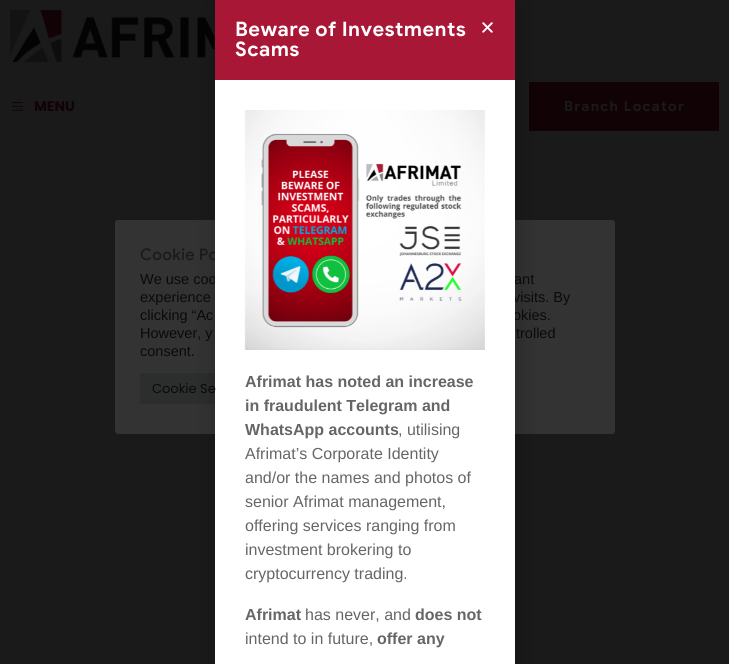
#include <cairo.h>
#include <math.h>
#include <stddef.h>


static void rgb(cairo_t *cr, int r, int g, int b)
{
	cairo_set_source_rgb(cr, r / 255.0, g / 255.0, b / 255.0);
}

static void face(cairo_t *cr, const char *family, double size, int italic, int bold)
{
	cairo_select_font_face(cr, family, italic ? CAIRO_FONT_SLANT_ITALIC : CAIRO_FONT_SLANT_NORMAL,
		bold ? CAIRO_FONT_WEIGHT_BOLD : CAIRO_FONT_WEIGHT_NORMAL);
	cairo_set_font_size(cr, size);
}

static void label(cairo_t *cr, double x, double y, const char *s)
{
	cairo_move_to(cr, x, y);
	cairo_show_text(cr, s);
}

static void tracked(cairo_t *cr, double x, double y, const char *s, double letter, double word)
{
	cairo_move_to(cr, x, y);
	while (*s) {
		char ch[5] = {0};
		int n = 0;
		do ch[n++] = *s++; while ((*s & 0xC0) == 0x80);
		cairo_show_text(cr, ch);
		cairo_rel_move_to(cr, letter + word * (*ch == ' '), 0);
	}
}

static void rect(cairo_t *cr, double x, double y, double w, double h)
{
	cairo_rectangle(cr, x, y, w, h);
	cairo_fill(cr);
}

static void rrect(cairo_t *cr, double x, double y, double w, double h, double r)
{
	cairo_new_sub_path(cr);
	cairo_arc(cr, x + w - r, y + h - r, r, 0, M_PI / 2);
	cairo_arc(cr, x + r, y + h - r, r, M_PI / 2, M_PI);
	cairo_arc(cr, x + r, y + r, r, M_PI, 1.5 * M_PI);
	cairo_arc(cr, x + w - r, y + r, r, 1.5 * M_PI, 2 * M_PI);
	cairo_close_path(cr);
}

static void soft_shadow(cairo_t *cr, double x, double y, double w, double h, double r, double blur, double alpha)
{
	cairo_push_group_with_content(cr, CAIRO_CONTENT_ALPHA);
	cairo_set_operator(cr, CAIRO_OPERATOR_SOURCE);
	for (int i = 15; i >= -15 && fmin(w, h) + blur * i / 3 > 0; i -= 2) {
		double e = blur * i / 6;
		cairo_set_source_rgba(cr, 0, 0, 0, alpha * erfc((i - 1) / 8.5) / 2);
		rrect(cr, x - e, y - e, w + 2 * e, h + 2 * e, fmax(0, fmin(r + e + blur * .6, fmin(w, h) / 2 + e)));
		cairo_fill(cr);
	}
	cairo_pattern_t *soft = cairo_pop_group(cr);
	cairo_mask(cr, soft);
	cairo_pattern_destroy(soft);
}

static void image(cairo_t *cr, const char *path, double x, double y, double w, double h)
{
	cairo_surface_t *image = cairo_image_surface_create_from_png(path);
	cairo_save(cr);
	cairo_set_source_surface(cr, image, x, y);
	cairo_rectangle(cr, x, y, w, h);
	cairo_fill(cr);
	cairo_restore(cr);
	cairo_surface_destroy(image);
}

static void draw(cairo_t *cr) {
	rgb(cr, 26, 26, 26);
	cairo_paint(cr);
	image(cr, "image2.png", 10, 10, 205, 52);
	rgb(cr, 17, 2, 5);
	rect(cr, 529, 82, 190, 49);
	rgb(cr, 51, 51, 51);
	rrect(cr, 115, 220, 500, 214, 3);
	cairo_fill(cr);
	rgb(cr, 44, 45, 45);
	rect(cr, 140, 373, 75, 31);
	rgb(cr, 0, 0, 0);
	soft_shadow(cr, 214, 5, 306, 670, 0, 11.5, 0.2);
	face(cr, "Google Sans Medium", 16, 0, 0);
	rgb(cr, 26, 26, 26);
	tracked(cr, 140, 260, "Cookie Po", 0.25, 0);
	face(cr, "Liberation Sans", 14.5, 0, 0);
	rgb(cr, 10, 10, 10);
	label(cr, 140, 284, "We use coo");
	label(cr, 514, 284, "ant");
	label(cr, 513, 302, "visits. By");
	label(cr, 513, 320, "okies.");
	rgb(cr, 255, 255, 255);
	rect(cr, 215, 80, 300, 584);
	rgb(cr, 169, 23, 54);
	rect(cr, 215, 0, 300, 80);
	face(cr, "Google Sans", 20, 0, 1);
	rgb(cr, 255, 255, 255);
	tracked(cr, 235, 36, "Beware of Investments", 0.4, 0);
	tracked(cr, 235, 56, "Scams", 0.4, 0);
	image(cr, "image0.png", 244, 110, 241, 240);
	face(cr, "Liberation Sans", 16, 0, 1);
	rgb(cr, 102, 102, 102);
	label(cr, 245, 387, "Afrimat has noted an increase");
	label(cr, 245, 411, "in fraudulent Telegram and");
	label(cr, 245, 435, "WhatsApp accounts");
	face(cr, "Liberation Sans", 16, 0, 0);
	label(cr, 398, 435, ", utilising");
	label(cr, 245, 459, "Afrimat’s Corporate Identity");
	label(cr, 245, 483, "and/or the names and photos of");
	label(cr, 245, 507, "senior Afrimat management,");
	label(cr, 245, 531, "offering services ranging from");
	label(cr, 245, 555, "investment brokering to");
	label(cr, 245, 579, "cryptocurrency trading.");
	face(cr, "Liberation Sans", 16, 0, 1);
	label(cr, 245, 620, "Afrimat");
	face(cr, "Liberation Sans", 16, 0, 0);
	label(cr, 305, 620, "has never, and");
	face(cr, "Liberation Sans", 16, 0, 1);
	label(cr, 415, 620, "does not");
	face(cr, "Liberation Sans", 16, 0, 0);
	label(cr, 245, 644, "intend to in future,");
	face(cr, "Liberation Sans", 16, 0, 1);
	label(cr, 377, 644, "offer any");
	image(cr, "image1.png", 482, 22, 11, 11);
	image(cr, "image3.png", 11, 102, 13, 9);
	face(cr, "Poppins", 14, 0, 1);
	rgb(cr, 17, 2, 5);
	label(cr, 34, 111, "MENU");
	face(cr, "Google Sans", 14, 0, 1);
	rgb(cr, 26, 26, 26);
	tracked(cr, 564, 111, "Branch Locator", 1.25, 0);
	face(cr, "Liberation Sans", 14.5, 0, 0);
	rgb(cr, 10, 10, 10);
	label(cr, 140, 302, "experience");
	label(cr, 140, 320, "clicking “Ac");
	label(cr, 140, 338, "However, y");
	label(cr, 516, 338, "trolled");
	label(cr, 140, 356, "consent.");
	face(cr, "Poppins", 13, 0, 0);
	label(cr, 152, 393, "Cookie Se");
}

int main(void) {
	cairo_surface_t *surface = cairo_image_surface_create(CAIRO_FORMAT_RGB24, 729, 664);
	cairo_t *cr = cairo_create(surface);
	cairo_font_options_t *options = cairo_font_options_create();
	cairo_font_options_set_hint_metrics(options, CAIRO_HINT_METRICS_OFF);
	cairo_font_options_set_hint_style(options, CAIRO_HINT_STYLE_NONE);
	cairo_set_font_options(cr, options);
	cairo_set_miter_limit(cr, 4);
	draw(cr);
	cairo_surface_write_to_png(surface, "render.png");
	cairo_font_options_destroy(options);
	cairo_destroy(cr);
	cairo_surface_destroy(surface);
	return 0;
}
